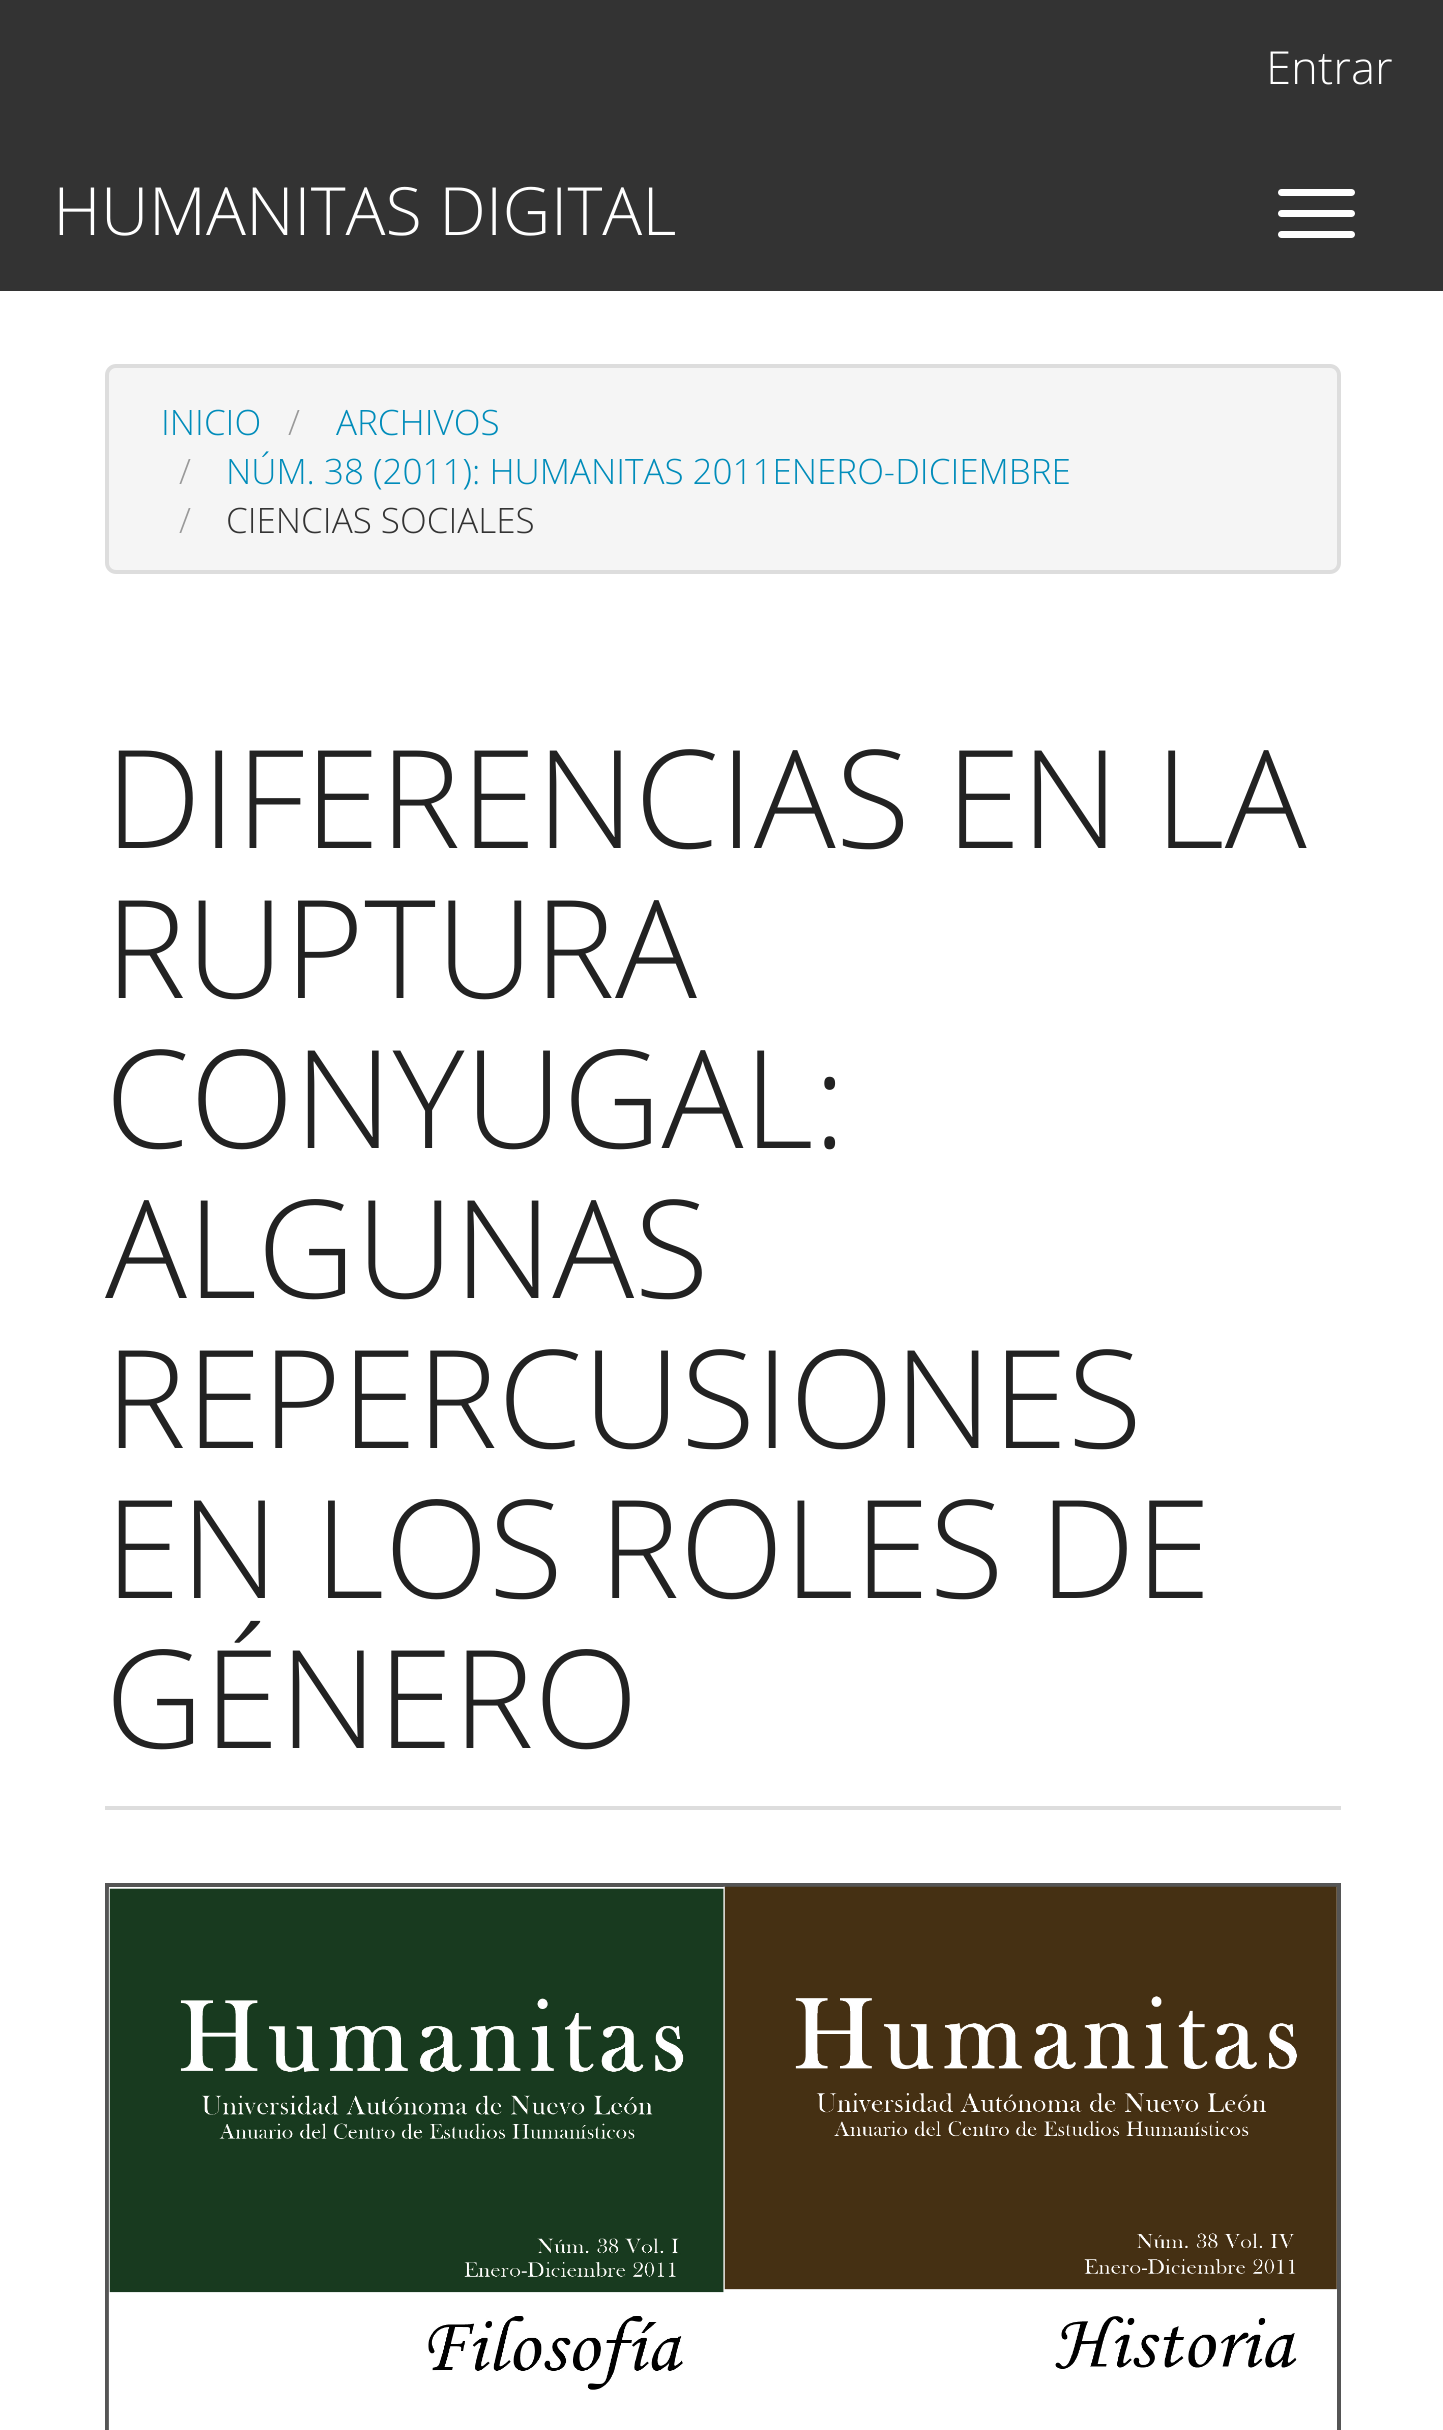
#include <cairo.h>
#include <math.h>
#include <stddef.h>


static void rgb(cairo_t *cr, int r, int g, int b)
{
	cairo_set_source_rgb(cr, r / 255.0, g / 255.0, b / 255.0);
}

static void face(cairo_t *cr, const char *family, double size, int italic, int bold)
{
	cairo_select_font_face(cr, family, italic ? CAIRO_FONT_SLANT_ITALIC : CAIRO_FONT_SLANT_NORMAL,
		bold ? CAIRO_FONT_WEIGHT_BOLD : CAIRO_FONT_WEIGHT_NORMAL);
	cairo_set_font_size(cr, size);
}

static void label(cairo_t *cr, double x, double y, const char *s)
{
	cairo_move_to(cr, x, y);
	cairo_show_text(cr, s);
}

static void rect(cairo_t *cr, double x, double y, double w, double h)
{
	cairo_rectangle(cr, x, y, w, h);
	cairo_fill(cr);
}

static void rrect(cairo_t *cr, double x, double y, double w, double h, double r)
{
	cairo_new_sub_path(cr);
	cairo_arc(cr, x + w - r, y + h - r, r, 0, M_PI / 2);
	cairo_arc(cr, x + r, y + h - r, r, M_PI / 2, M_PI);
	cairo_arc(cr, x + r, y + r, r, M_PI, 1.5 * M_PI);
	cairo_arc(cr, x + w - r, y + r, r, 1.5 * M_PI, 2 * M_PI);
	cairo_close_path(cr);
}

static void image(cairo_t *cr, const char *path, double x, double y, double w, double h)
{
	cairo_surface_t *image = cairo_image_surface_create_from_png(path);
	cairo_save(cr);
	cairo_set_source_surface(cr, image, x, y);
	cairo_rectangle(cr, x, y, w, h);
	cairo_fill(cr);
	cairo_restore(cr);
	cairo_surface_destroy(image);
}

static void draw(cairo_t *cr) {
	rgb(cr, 255, 255, 255);
	cairo_paint(cr);
	rgb(cr, 51, 51, 51);
	rect(cr, 0, 0, 1443, 291);
	face(cr, "Open Sans Light", 45.5, 0, 0);
	rgb(cr, 255, 255, 255);
	label(cr, 1266, 84, "Entrar");
	face(cr, "Open Sans Light", 66.5, 0, 0);
	label(cr, 53, 235, "HUMANITAS DIGITAL");
	rrect(cr, 1278, 189, 77, 7, 3.5);
	cairo_fill(cr);
	rrect(cr, 1278, 210, 77, 7, 3.5);
	cairo_fill(cr);
	rrect(cr, 1278, 231, 77, 7, 3.5);
	cairo_fill(cr);
	rgb(cr, 245, 245, 245);
	rrect(cr, 107, 366, 1232, 206, 9);
	cairo_fill_preserve(cr);
	rgb(cr, 221, 221, 221);
	cairo_set_line_width(cr, 4);
	cairo_stroke(cr);
	face(cr, "Open Sans Light", 35, 0, 0);
	rgb(cr, 0, 140, 186);
	label(cr, 161, 435, "INICIO");
	rgb(cr, 153, 153, 153);
	label(cr, 288, 435, "/");
	rgb(cr, 0, 140, 186);
	label(cr, 336, 435, "ARCHIVOS");
	rgb(cr, 153, 153, 153);
	label(cr, 179, 484, "/");
	rgb(cr, 0, 140, 186);
	label(cr, 226, 484, "NÚM. 38 (2011): HUMANITAS 2011ENERO-DICIEMBRE");
	rgb(cr, 153, 153, 153);
	label(cr, 179, 533, "/");
	rgb(cr, 51, 51, 51);
	label(cr, 226, 533, "CIENCIAS SOCIALES");
	rgb(cr, 221, 221, 221);
	rect(cr, 105, 1806, 1236, 4);
	face(cr, "Open Sans Light", 136.5, 0, 0);
	rgb(cr, 34, 34, 34);
	label(cr, 105, 848, "DIFERENCIAS EN LA");
	label(cr, 105, 998, "RUPTURA");
	label(cr, 105, 1148, "CONYUGAL:");
	label(cr, 105, 1298, "ALGUNAS");
	label(cr, 105, 1448, "REPERCUSIONES");
	label(cr, 105, 1598, "EN LOS ROLES DE");
	label(cr, 105, 1748, "GÉNERO");
	cairo_rectangle(cr, 107, 1885, 1232, 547);
	rgb(cr, 85, 85, 85);
	cairo_stroke(cr);
	image(cr, "image0.png", 108, 1886, 1229, 544);
}

int main(void) {
	cairo_surface_t *surface = cairo_image_surface_create(CAIRO_FORMAT_RGB24, 1443, 2430);
	cairo_t *cr = cairo_create(surface);
	cairo_font_options_t *options = cairo_font_options_create();
	cairo_font_options_set_hint_metrics(options, CAIRO_HINT_METRICS_OFF);
	cairo_font_options_set_hint_style(options, CAIRO_HINT_STYLE_NONE);
	cairo_set_font_options(cr, options);
	cairo_set_miter_limit(cr, 4);
	draw(cr);
	cairo_surface_write_to_png(surface, "render.png");
	cairo_font_options_destroy(options);
	cairo_destroy(cr);
	cairo_surface_destroy(surface);
	return 0;
}
